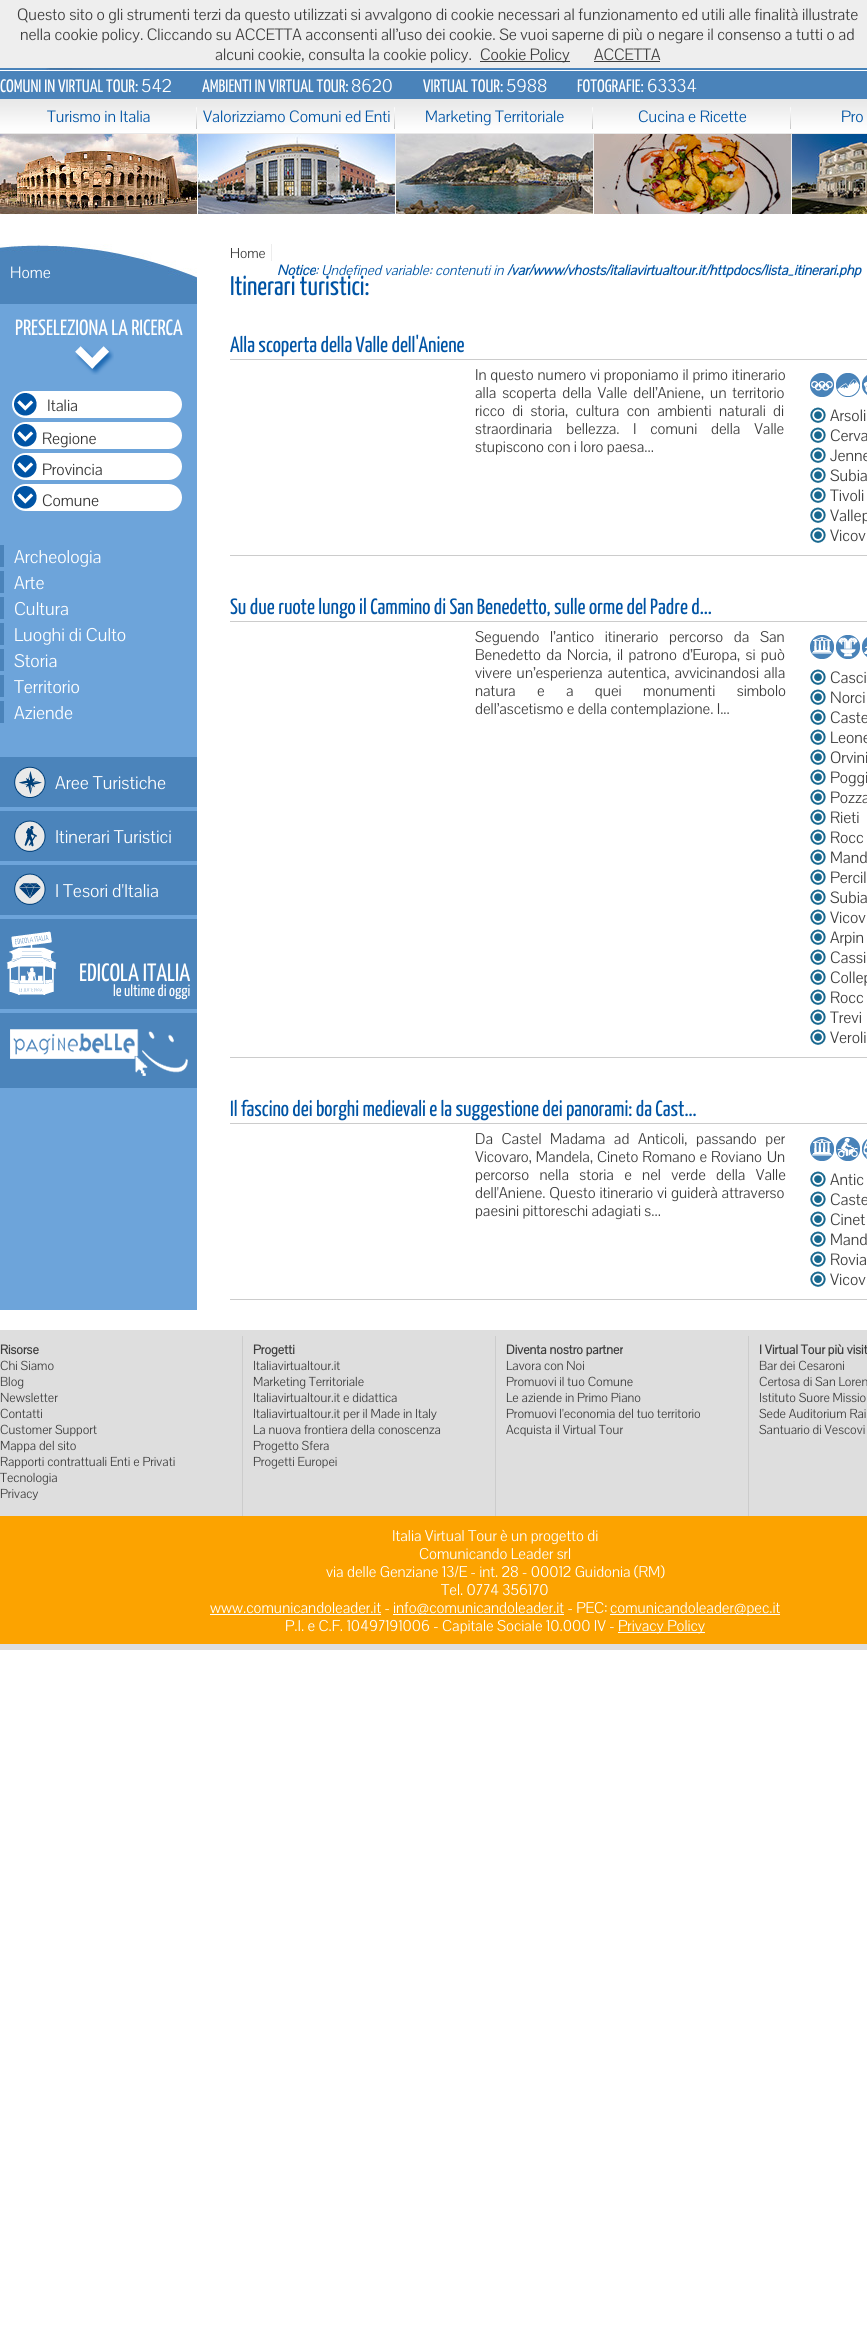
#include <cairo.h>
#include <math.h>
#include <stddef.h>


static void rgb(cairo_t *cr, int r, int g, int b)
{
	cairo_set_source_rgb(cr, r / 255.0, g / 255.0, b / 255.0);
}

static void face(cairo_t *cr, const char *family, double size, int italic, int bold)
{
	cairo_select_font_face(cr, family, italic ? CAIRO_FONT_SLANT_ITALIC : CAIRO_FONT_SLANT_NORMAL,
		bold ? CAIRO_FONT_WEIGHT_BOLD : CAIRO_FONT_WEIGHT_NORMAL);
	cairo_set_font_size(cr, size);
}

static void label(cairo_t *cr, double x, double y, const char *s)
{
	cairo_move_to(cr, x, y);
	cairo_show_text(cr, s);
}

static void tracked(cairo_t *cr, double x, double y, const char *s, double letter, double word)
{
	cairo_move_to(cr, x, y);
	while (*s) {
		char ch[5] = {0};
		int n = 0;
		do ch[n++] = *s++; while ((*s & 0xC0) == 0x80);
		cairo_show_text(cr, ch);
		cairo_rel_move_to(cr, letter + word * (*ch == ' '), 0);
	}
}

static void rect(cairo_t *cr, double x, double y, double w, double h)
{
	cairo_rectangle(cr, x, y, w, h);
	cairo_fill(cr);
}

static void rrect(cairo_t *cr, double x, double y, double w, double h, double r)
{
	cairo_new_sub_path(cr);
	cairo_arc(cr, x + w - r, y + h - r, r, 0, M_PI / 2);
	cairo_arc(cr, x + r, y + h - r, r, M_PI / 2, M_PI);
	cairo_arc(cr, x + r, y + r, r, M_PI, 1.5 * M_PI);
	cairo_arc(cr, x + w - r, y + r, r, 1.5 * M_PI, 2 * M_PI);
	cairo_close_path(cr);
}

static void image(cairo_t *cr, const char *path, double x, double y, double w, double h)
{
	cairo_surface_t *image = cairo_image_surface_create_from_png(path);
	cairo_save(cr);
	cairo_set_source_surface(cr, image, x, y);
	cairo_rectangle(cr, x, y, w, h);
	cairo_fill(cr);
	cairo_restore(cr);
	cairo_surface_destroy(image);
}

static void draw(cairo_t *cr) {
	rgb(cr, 255, 255, 255);
	cairo_paint(cr);
	rgb(cr, 238, 238, 238);
	rect(cr, 0, 0, 867, 68);
	face(cr, "Pontano Sans", 16, 0, 0);
	rgb(cr, 60, 60, 60);
	label(cr, 17, 20, "Questo sito o gli strumenti terzi da questo utilizzati si avvalgono di cookie necessari al funzionamento ed utili alle finalità illustrate");
	label(cr, 20, 40, "nella cookie policy. Cliccando su ACCETTA acconsenti all’uso dei cookie. Se vuoi saperne di più o negare il consenso a tutti o ad");
	label(cr, 215, 60, "alcuni cookie, consulta la cookie policy.");
	rect(cr, 480, 61, 90, 1);
	label(cr, 480, 60, "Cookie Policy");
	label(cr, 594, 60, "ACCETTA");
	rect(cr, 594, 61, 66, 1);
	rgb(cr, 74, 131, 186);
	rect(cr, 0, 71, 867, 28);
	image(cr, "image0.png", 0, 68, 867, 2);
	face(cr, "Yanone Kaffeesatz", 18, 0, 0);
	rgb(cr, 255, 255, 255);
	label(cr, 0, 92, "COMUNI IN VIRTUAL TOUR:");
	face(cr, "Pontano Sans", 18, 0, 0);
	label(cr, 141, 92, "542");
	face(cr, "Yanone Kaffeesatz", 18, 0, 0);
	label(cr, 202, 92, "AMBIENTI IN VIRTUAL TOUR:");
	face(cr, "Pontano Sans", 18, 0, 0);
	label(cr, 351, 92, "8620");
	face(cr, "Yanone Kaffeesatz", 18, 0, 0);
	label(cr, 423, 92, "VIRTUAL TOUR:");
	face(cr, "Pontano Sans", 18, 0, 0);
	label(cr, 506, 92, "5988");
	face(cr, "Yanone Kaffeesatz", 18, 0, 0);
	label(cr, 577, 92, "FOTOGRAFIE:");
	face(cr, "Pontano Sans", 18, 0, 0);
	label(cr, 647, 92, "63334");
	image(cr, "image1.png", 0, 99, 867, 99);
	image(cr, "image2.png", 196, 107, 1, 22);
	face(cr, "Pontano Sans", 16, 0, 0);
	rgb(cr, 0, 84, 165);
	label(cr, 47, 122, "Turismo in Italia");
	image(cr, "image3.png", 0, 134, 197, 80);
	image(cr, "image2.png", 394, 107, 1, 22);
	label(cr, 203, 122, "Valorizziamo Comuni ed Enti");
	image(cr, "image4.png", 198, 134, 197, 80);
	image(cr, "image2.png", 592, 107, 1, 22);
	label(cr, 425, 122, "Marketing Territoriale");
	image(cr, "image5.png", 396, 134, 197, 80);
	image(cr, "image2.png", 790, 107, 1, 22);
	label(cr, 638, 122, "Cucina e Ricette");
	image(cr, "image6.png", 594, 134, 197, 80);
	label(cr, 841, 122, "Pro");
	image(cr, "image7.png", 792, 134, 75, 80);
	rgb(cr, 109, 164, 218);
	rect(cr, 0, 304, 197, 1006);
	rgb(cr, 237, 237, 237);
	rect(cr, 271, 244, 1, 17);
	face(cr, "Pontano Sans", 14, 0, 0);
	rgb(cr, 60, 60, 60);
	label(cr, 230, 258, "Home");
	face(cr, "Pontano Sans", 14, 1, 1);
	rgb(cr, 0, 84, 165);
	label(cr, 277, 275, "Notice");
	face(cr, "Pontano Sans", 14, 1, 0);
	label(cr, 315, 275, ": Undefined variable: contenuti in");
	face(cr, "Pontano Sans", 14, 1, 1);
	label(cr, 507, 275, "/var/www/vhosts/italiavirtualtour.it/httpdocs/lista_itinerari.php");
	image(cr, "image8.png", 0, 244, 197, 60);
	face(cr, "Pontano Sans", 16, 0, 0);
	rgb(cr, 255, 255, 255);
	label(cr, 10, 278, "Home");
	image(cr, "image9.png", 75, 346, 39, 29);
	face(cr, "Yanone Kaffeesatz", 22, 0, 0);
	label(cr, 15, 335, "PRESELEZIONA LA RICERCA");
	rrect(cr, 12, 391, 170, 27, 13.5);
	cairo_fill(cr);
	image(cr, "image10.png", 14, 393, 23, 23);
	face(cr, "Pontano Sans", 16, 0, 0);
	rgb(cr, 51, 51, 51);
	label(cr, 47, 411, "Italia");
	rgb(cr, 255, 255, 255);
	rrect(cr, 12, 422, 170, 27, 13.5);
	cairo_fill(cr);
	image(cr, "image10.png", 14, 424, 23, 23);
	rgb(cr, 51, 51, 51);
	label(cr, 42, 444, "Regione");
	rgb(cr, 255, 255, 255);
	rrect(cr, 12, 453, 170, 27, 13.5);
	cairo_fill(cr);
	image(cr, "image10.png", 14, 455, 23, 23);
	rgb(cr, 51, 51, 51);
	label(cr, 42, 475, "Provincia");
	rgb(cr, 255, 255, 255);
	rrect(cr, 12, 484, 170, 27, 13.5);
	cairo_fill(cr);
	image(cr, "image10.png", 14, 486, 23, 23);
	rgb(cr, 51, 51, 51);
	label(cr, 42, 506, "Comune");
	rgb(cr, 74, 131, 186);
	rect(cr, 0, 545, 4, 22);
	face(cr, "Pontano Sans", 18, 0, 0);
	rgb(cr, 255, 255, 255);
	label(cr, 14, 563, "Archeologia");
	rgb(cr, 74, 131, 186);
	rect(cr, 0, 571, 4, 22);
	rgb(cr, 255, 255, 255);
	label(cr, 14, 589, "Arte");
	rgb(cr, 74, 131, 186);
	rect(cr, 0, 597, 4, 22);
	rgb(cr, 255, 255, 255);
	label(cr, 14, 615, "Cultura");
	rgb(cr, 74, 131, 186);
	rect(cr, 0, 623, 4, 22);
	rgb(cr, 255, 255, 255);
	label(cr, 14, 641, "Luoghi di Culto");
	rgb(cr, 74, 131, 186);
	rect(cr, 0, 649, 4, 22);
	rgb(cr, 255, 255, 255);
	label(cr, 14, 667, "Storia");
	rgb(cr, 74, 131, 186);
	rect(cr, 0, 675, 4, 22);
	rgb(cr, 255, 255, 255);
	label(cr, 14, 693, "Territorio");
	rgb(cr, 74, 131, 186);
	rect(cr, 0, 701, 4, 22);
	rgb(cr, 255, 255, 255);
	label(cr, 14, 719, "Aziende");
	rgb(cr, 75, 132, 187);
	rect(cr, 0, 757, 197, 50);
	image(cr, "image11.png", 14, 766, 32, 32);
	rgb(cr, 255, 255, 255);
	label(cr, 55, 789, "Aree Turistiche");
	rgb(cr, 75, 132, 187);
	rect(cr, 0, 811, 197, 50);
	image(cr, "image12.png", 14, 820, 32, 32);
	rgb(cr, 255, 255, 255);
	label(cr, 55, 843, "Itinerari Turistici");
	rgb(cr, 75, 132, 187);
	rect(cr, 0, 865, 197, 50);
	image(cr, "image13.png", 14, 873, 32, 32);
	rgb(cr, 255, 255, 255);
	label(cr, 55, 897, "I Tesori d'Italia");
	rgb(cr, 75, 132, 187);
	rect(cr, 0, 919, 197, 90);
	image(cr, "image14.png", 6, 931, 51, 64);
	face(cr, "Yanone Kaffeesatz", 25, 0, 0);
	rgb(cr, 255, 255, 255);
	label(cr, 79, 981, "EDICOLA ITALIA");
	face(cr, "Yanone Kaffeesatz", 16, 0, 0);
	label(cr, 113, 996, "le ultime di oggi");
	rgb(cr, 75, 132, 187);
	rect(cr, 0, 1013, 197, 75);
	image(cr, "image15.png", 10, 1029, 178, 47);
	face(cr, "Yanone Kaffeesatz", 27, 0, 0);
	rgb(cr, 0, 84, 165);
	label(cr, 230, 295, "Itinerari turistici:");
	rgb(cr, 204, 204, 204);
	rect(cr, 230, 555, 637, 1);
	rect(cr, 230, 359, 637, 1);
	face(cr, "Yanone Kaffeesatz", 22, 0, 0);
	rgb(cr, 0, 84, 165);
	label(cr, 230, 352, "Alla scoperta della Valle dell'Aniene");
	face(cr, "Pontano Sans", 15.2, 0, 0);
	rgb(cr, 60, 60, 60);
	tracked(cr, 475, 380, "In questo numero vi proponiamo il primo itinerario", 0, 0.5);
	tracked(cr, 475, 398, "alla scoperta della Valle dell’Aniene, un territorio", 0, 2.5);
	tracked(cr, 475, 416, "ricco di storia, cultura con ambienti naturali di", 0, 4);
	tracked(cr, 475, 434, "straordinaria bellezza.", 0, 10.5);
	tracked(cr, 633, 434, "I comuni della Valle", 0, 10.5);
	label(cr, 475, 452, "stupiscono con i loro paesa...");
	image(cr, "image16.png", 810, 373, 24, 24);
	image(cr, "image17.png", 836, 373, 24, 24);
	image(cr, "image18.png", 862, 375, 5, 20);
	image(cr, "image19.png", 810, 407, 16, 16);
	face(cr, "Pontano Sans", 16, 0, 0);
	label(cr, 830, 421, "Arsoli");
	image(cr, "image19.png", 810, 427, 16, 16);
	label(cr, 830, 441, "Cerva");
	image(cr, "image19.png", 810, 447, 16, 16);
	label(cr, 830, 461, "Jenne");
	image(cr, "image19.png", 810, 467, 16, 16);
	label(cr, 830, 481, "Subia");
	image(cr, "image19.png", 810, 487, 16, 16);
	label(cr, 830, 501, "Tivoli");
	image(cr, "image19.png", 810, 507, 16, 16);
	label(cr, 830, 521, "Vallep");
	image(cr, "image19.png", 810, 527, 16, 16);
	label(cr, 830, 541, "Vicov");
	rgb(cr, 204, 204, 204);
	rect(cr, 230, 1057, 637, 1);
	rect(cr, 230, 621, 637, 1);
	face(cr, "Yanone Kaffeesatz", 22, 0, 0);
	rgb(cr, 0, 84, 165);
	label(cr, 230, 614, "Su due ruote lungo il Cammino di San Benedetto, sulle orme del Padre d...");
	face(cr, "Pontano Sans", 15.2, 0, 0);
	rgb(cr, 60, 60, 60);
	tracked(cr, 475, 642, "Seguendo l’antico itinerario percorso da San", 0, 7.25);
	tracked(cr, 475, 660, "Benedetto da Norcia, il patrono d’Europa, si può", 0, 2);
	tracked(cr, 475, 678, "vivere un’esperienza autentica, avvicinandosi alla", 0, 1.5);
	tracked(cr, 475, 696, "natura e a quei monumenti simbolo", 0, 18);
	label(cr, 475, 714, "dell’ascetismo e della contemplazione. I...");
	image(cr, "image20.png", 810, 635, 24, 24);
	image(cr, "image21.png", 836, 635, 24, 24);
	image(cr, "image22.png", 862, 637, 5, 20);
	image(cr, "image19.png", 810, 669, 16, 16);
	face(cr, "Pontano Sans", 16, 0, 0);
	label(cr, 830, 683, "Casci");
	image(cr, "image19.png", 810, 689, 16, 16);
	label(cr, 830, 703, "Norci");
	image(cr, "image19.png", 810, 709, 16, 16);
	label(cr, 830, 723, "Caste");
	image(cr, "image19.png", 810, 729, 16, 16);
	label(cr, 830, 743, "Leone");
	image(cr, "image19.png", 810, 749, 16, 16);
	label(cr, 830, 763, "Orvini");
	image(cr, "image19.png", 810, 769, 16, 16);
	label(cr, 830, 783, "Poggi");
	image(cr, "image19.png", 810, 789, 16, 16);
	label(cr, 830, 803, "Pozza");
	image(cr, "image19.png", 810, 809, 16, 16);
	label(cr, 830, 823, "Rieti");
	image(cr, "image19.png", 810, 829, 16, 16);
	label(cr, 830, 843, "Rocc");
	image(cr, "image19.png", 810, 849, 16, 16);
	label(cr, 830, 863, "Mand");
	image(cr, "image19.png", 810, 869, 16, 16);
	label(cr, 830, 883, "Percil");
	image(cr, "image19.png", 810, 889, 16, 16);
	label(cr, 830, 903, "Subia");
	image(cr, "image19.png", 810, 909, 16, 16);
	label(cr, 830, 923, "Vicov");
	image(cr, "image19.png", 810, 929, 16, 16);
	label(cr, 830, 943, "Arpin");
	image(cr, "image19.png", 810, 949, 16, 16);
	label(cr, 830, 963, "Cassi");
	image(cr, "image19.png", 810, 969, 16, 16);
	label(cr, 830, 983, "Collep");
	image(cr, "image19.png", 810, 989, 16, 16);
	label(cr, 830, 1003, "Rocc");
	image(cr, "image19.png", 810, 1009, 16, 16);
	label(cr, 830, 1023, "Trevi");
	image(cr, "image19.png", 810, 1029, 16, 16);
	label(cr, 830, 1043, "Veroli");
	rgb(cr, 204, 204, 204);
	rect(cr, 230, 1299, 637, 1);
	rect(cr, 230, 1123, 637, 1);
	face(cr, "Yanone Kaffeesatz", 22, 0, 0);
	rgb(cr, 0, 84, 165);
	label(cr, 230, 1116, "Il fascino dei borghi medievali e la suggestione dei panorami: da Cast...");
	face(cr, "Pontano Sans", 15.2, 0, 0);
	rgb(cr, 60, 60, 60);
	tracked(cr, 475, 1144, "Da Castel Madama ad Anticoli, passando per", 0, 5.25);
	tracked(cr, 475, 1162, "Vicovaro, Mandela, Cineto Romano e Roviano", 0, 0.5);
	label(cr, 767, 1162, "Un");
	tracked(cr, 475, 1180, "percorso nella storia e nel verde della Valle", 0, 7);
	tracked(cr, 475, 1198, "dell'Aniene. Questo itinerario vi guiderà attraverso", 0, 0.5);
	label(cr, 475, 1216, "paesini pittoreschi adagiati s...");
	image(cr, "image20.png", 810, 1137, 24, 24);
	image(cr, "image23.png", 836, 1137, 24, 24);
	image(cr, "image24.png", 862, 1139, 5, 20);
	image(cr, "image19.png", 810, 1171, 16, 16);
	face(cr, "Pontano Sans", 16, 0, 0);
	label(cr, 830, 1185, "Antic");
	image(cr, "image19.png", 810, 1191, 16, 16);
	label(cr, 830, 1205, "Caste");
	image(cr, "image19.png", 810, 1211, 16, 16);
	label(cr, 830, 1225, "Cinet");
	image(cr, "image19.png", 810, 1231, 16, 16);
	label(cr, 830, 1245, "Mand");
	image(cr, "image19.png", 810, 1251, 16, 16);
	label(cr, 830, 1265, "Rovia");
	image(cr, "image19.png", 810, 1271, 16, 16);
	label(cr, 830, 1285, "Vicov");
	rgb(cr, 222, 222, 222);
	rect(cr, 0, 1330, 867, 320);
	rgb(cr, 204, 204, 204);
	rect(cr, 242, 1336, 1, 180);
	face(cr, "Pontano Sans", 12.75, 0, 1);
	rgb(cr, 60, 60, 60);
	label(cr, 0, 1354, "Risorse");
	face(cr, "Pontano Sans", 12.75, 0, 0);
	label(cr, 0, 1370, "Chi Siamo");
	label(cr, 0, 1386, "Blog");
	label(cr, 0, 1402, "Newsletter");
	label(cr, 0, 1418, "Contatti");
	label(cr, 0, 1434, "Customer Support");
	label(cr, 0, 1450, "Mappa del sito");
	label(cr, 0, 1466, "Rapporti contrattuali Enti e Privati");
	label(cr, 0, 1482, "Tecnologia");
	label(cr, 0, 1498, "Privacy");
	rgb(cr, 204, 204, 204);
	rect(cr, 495, 1336, 1, 180);
	face(cr, "Pontano Sans", 12.75, 0, 1);
	rgb(cr, 60, 60, 60);
	label(cr, 253, 1354, "Progetti");
	face(cr, "Pontano Sans", 12.75, 0, 0);
	label(cr, 253, 1370, "Italiavirtualtour.it");
	label(cr, 253, 1386, "Marketing Territoriale");
	label(cr, 253, 1402, "Italiavirtualtour.it e didattica");
	label(cr, 253, 1418, "Italiavirtualtour.it per il Made in Italy");
	label(cr, 253, 1434, "La nuova frontiera della conoscenza");
	label(cr, 253, 1450, "Progetto Sfera");
	label(cr, 253, 1466, "Progetti Europei");
	rgb(cr, 204, 204, 204);
	rect(cr, 748, 1336, 1, 180);
	face(cr, "Pontano Sans", 12.75, 0, 1);
	rgb(cr, 60, 60, 60);
	label(cr, 506, 1354, "Diventa nostro partner");
	face(cr, "Pontano Sans", 12.75, 0, 0);
	label(cr, 506, 1370, "Lavora con Noi");
	label(cr, 506, 1386, "Promuovi il tuo Comune");
	label(cr, 506, 1402, "Le aziende in Primo Piano");
	label(cr, 506, 1418, "Promuovi l'economia del tuo territorio");
	label(cr, 506, 1434, "Acquista il Virtual Tour");
	face(cr, "Pontano Sans", 12.75, 0, 1);
	label(cr, 759, 1354, "I Virtual Tour più visit");
	face(cr, "Pontano Sans", 12.75, 0, 0);
	label(cr, 759, 1370, "Bar dei Cesaroni");
	label(cr, 759, 1386, "Certosa di San Loren");
	label(cr, 759, 1402, "Istituto Suore Missio");
	label(cr, 759, 1418, "Sede Auditorium Rai");
	label(cr, 759, 1434, "Santuario di Vescovi");
	rgb(cr, 252, 163, 0);
	rect(cr, 0, 1516, 867, 128);
	face(cr, "Pontano Sans", 15.2, 0, 0);
	rgb(cr, 255, 255, 255);
	label(cr, 392, 1541, "Italia Virtual Tour è un progetto di");
	label(cr, 419, 1559, "Comunicando Leader srl");
	label(cr, 326, 1577, "via delle Genziane 13/E - int. 28 - 00012 Guidonia (RM)");
	label(cr, 441, 1595, "Tel. 0774 356170");
	label(cr, 210, 1613, "www.comunicandoleader.it -");
	rect(cr, 210, 1614, 171, 1);
	rect(cr, 393, 1614, 171, 1);
	label(cr, 393, 1613, "info@comunicandoleader.it - PEC:");
	rect(cr, 610, 1614, 170, 1);
	label(cr, 610, 1613, "comunicandoleader@pec.it");
	label(cr, 285, 1631, "P.I. e C.F. 10497191006 - Capitale Sociale 10.000 IV -");
	rect(cr, 618, 1632, 87, 1);
	label(cr, 618, 1631, "Privacy Policy");
}

int main(void) {
	cairo_surface_t *surface = cairo_image_surface_create(CAIRO_FORMAT_RGB24, 867, 2327);
	cairo_t *cr = cairo_create(surface);
	cairo_font_options_t *options = cairo_font_options_create();
	cairo_font_options_set_hint_metrics(options, CAIRO_HINT_METRICS_OFF);
	cairo_font_options_set_hint_style(options, CAIRO_HINT_STYLE_NONE);
	cairo_set_font_options(cr, options);
	cairo_set_miter_limit(cr, 4);
	draw(cr);
	cairo_surface_write_to_png(surface, "render.png");
	cairo_font_options_destroy(options);
	cairo_destroy(cr);
	cairo_surface_destroy(surface);
	return 0;
}
